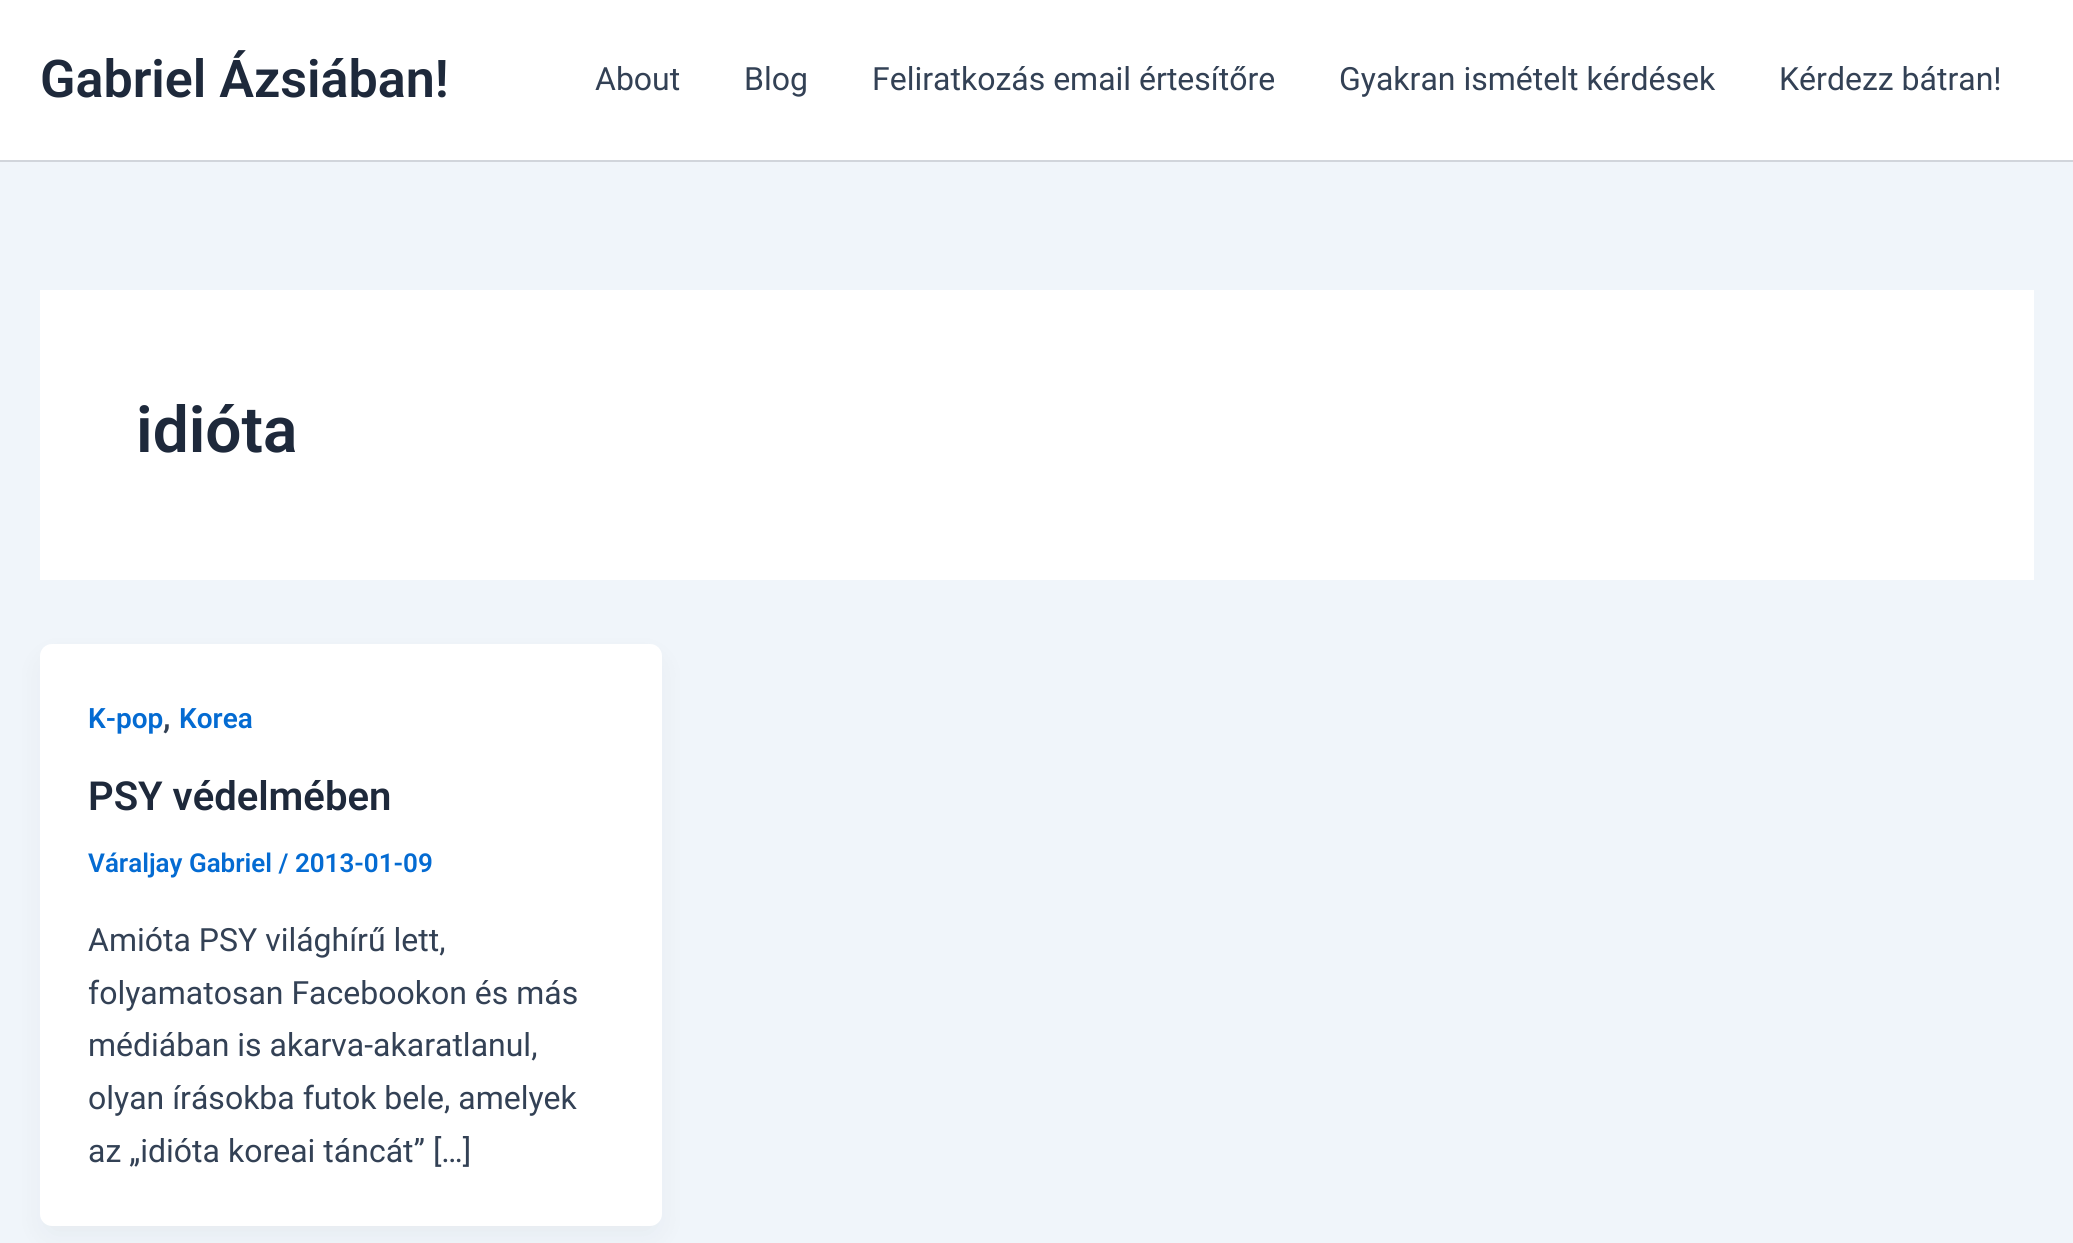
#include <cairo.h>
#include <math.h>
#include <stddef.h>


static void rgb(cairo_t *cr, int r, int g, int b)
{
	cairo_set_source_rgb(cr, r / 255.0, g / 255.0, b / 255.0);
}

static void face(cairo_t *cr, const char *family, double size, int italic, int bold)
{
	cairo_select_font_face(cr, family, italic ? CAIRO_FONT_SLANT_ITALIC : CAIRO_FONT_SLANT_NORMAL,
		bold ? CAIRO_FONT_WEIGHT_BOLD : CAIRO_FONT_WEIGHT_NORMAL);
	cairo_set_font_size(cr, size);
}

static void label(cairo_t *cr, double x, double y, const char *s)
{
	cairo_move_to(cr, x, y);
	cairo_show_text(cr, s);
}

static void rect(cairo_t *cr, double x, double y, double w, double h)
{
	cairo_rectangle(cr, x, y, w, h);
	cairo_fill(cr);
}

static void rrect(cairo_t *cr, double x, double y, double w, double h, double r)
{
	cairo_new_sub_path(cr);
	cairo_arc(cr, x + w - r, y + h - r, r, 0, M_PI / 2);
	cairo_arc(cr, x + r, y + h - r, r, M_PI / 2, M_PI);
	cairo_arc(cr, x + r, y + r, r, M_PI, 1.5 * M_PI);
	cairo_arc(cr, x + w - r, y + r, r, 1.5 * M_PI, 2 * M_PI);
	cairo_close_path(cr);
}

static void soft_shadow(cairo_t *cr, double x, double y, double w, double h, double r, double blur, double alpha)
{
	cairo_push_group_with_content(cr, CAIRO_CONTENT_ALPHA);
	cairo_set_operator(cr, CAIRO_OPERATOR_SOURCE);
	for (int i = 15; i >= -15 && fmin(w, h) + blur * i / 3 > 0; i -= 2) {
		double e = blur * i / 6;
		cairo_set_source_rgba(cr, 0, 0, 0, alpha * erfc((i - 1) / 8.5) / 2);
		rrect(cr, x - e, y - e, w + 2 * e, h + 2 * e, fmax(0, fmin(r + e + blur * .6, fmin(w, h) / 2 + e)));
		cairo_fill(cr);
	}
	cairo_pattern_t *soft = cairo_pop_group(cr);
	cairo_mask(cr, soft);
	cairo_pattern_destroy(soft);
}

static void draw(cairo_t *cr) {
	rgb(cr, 240, 245, 250);
	cairo_paint(cr);
	rgb(cr, 255, 255, 255);
	rect(cr, 0, 0, 2073, 160);
	rgb(cr, 209, 213, 219);
	rect(cr, 0, 160, 2073, 2);
	face(cr, "Roboto SemiBold", 52, 0, 0);
	rgb(cr, 30, 41, 59);
	label(cr, 40, 97, "Gabriel Ázsiában!");
	face(cr, "Roboto", 32, 0, 0);
	rgb(cr, 51, 65, 85);
	label(cr, 595, 90, "About");
	label(cr, 744, 90, "Blog");
	label(cr, 872, 90, "Feliratkozás email értesítőre");
	label(cr, 1339, 90, "Gyakran ismételt kérdések");
	label(cr, 1779, 90, "Kérdezz bátran!");
	rgb(cr, 255, 255, 255);
	rect(cr, 40, 290, 1994, 290);
	face(cr, "Roboto SemiBold", 64, 0, 0);
	rgb(cr, 30, 41, 59);
	label(cr, 136, 452, "idióta");
	rgb(cr, 16, 24, 40);
	soft_shadow(cr, 44, 660, 614, 574, 8, 15, 0.05);
	rgb(cr, 255, 255, 255);
	rrect(cr, 40, 644, 622, 582, 12);
	cairo_fill(cr);
	face(cr, "Roboto SemiBold", 28, 0, 0);
	rgb(cr, 4, 107, 210);
	label(cr, 88, 728, "K-pop");
	face(cr, "Roboto SemiBold", 32, 0, 0);
	rgb(cr, 51, 65, 85);
	label(cr, 163, 728, ",");
	face(cr, "Roboto SemiBold", 28, 0, 0);
	rgb(cr, 4, 107, 210);
	label(cr, 179, 728, "Korea");
	face(cr, "Roboto SemiBold", 40, 0, 0);
	rgb(cr, 30, 41, 59);
	label(cr, 88, 810, "PSY védelmében");
	face(cr, "Roboto SemiBold", 26, 0, 0);
	rgb(cr, 4, 107, 210);
	label(cr, 88, 872, "Váraljay Gabriel / 2013-01-09");
	face(cr, "Roboto", 32, 0, 0);
	rgb(cr, 51, 65, 85);
	label(cr, 88, 951, "Amióta PSY világhírű lett,");
	label(cr, 88, 1004, "folyamatosan Facebookon és más");
	label(cr, 88, 1056, "médiában is akarva-akaratlanul,");
	label(cr, 88, 1109, "olyan írásokba futok bele, amelyek");
	label(cr, 88, 1162, "az „idióta koreai táncát” […]");
}

int main(void) {
	cairo_surface_t *surface = cairo_image_surface_create(CAIRO_FORMAT_RGB24, 2073, 1243);
	cairo_t *cr = cairo_create(surface);
	cairo_font_options_t *options = cairo_font_options_create();
	cairo_font_options_set_hint_metrics(options, CAIRO_HINT_METRICS_OFF);
	cairo_font_options_set_hint_style(options, CAIRO_HINT_STYLE_NONE);
	cairo_set_font_options(cr, options);
	cairo_set_miter_limit(cr, 4);
	draw(cr);
	cairo_surface_write_to_png(surface, "render.png");
	cairo_font_options_destroy(options);
	cairo_destroy(cr);
	cairo_surface_destroy(surface);
	return 0;
}
